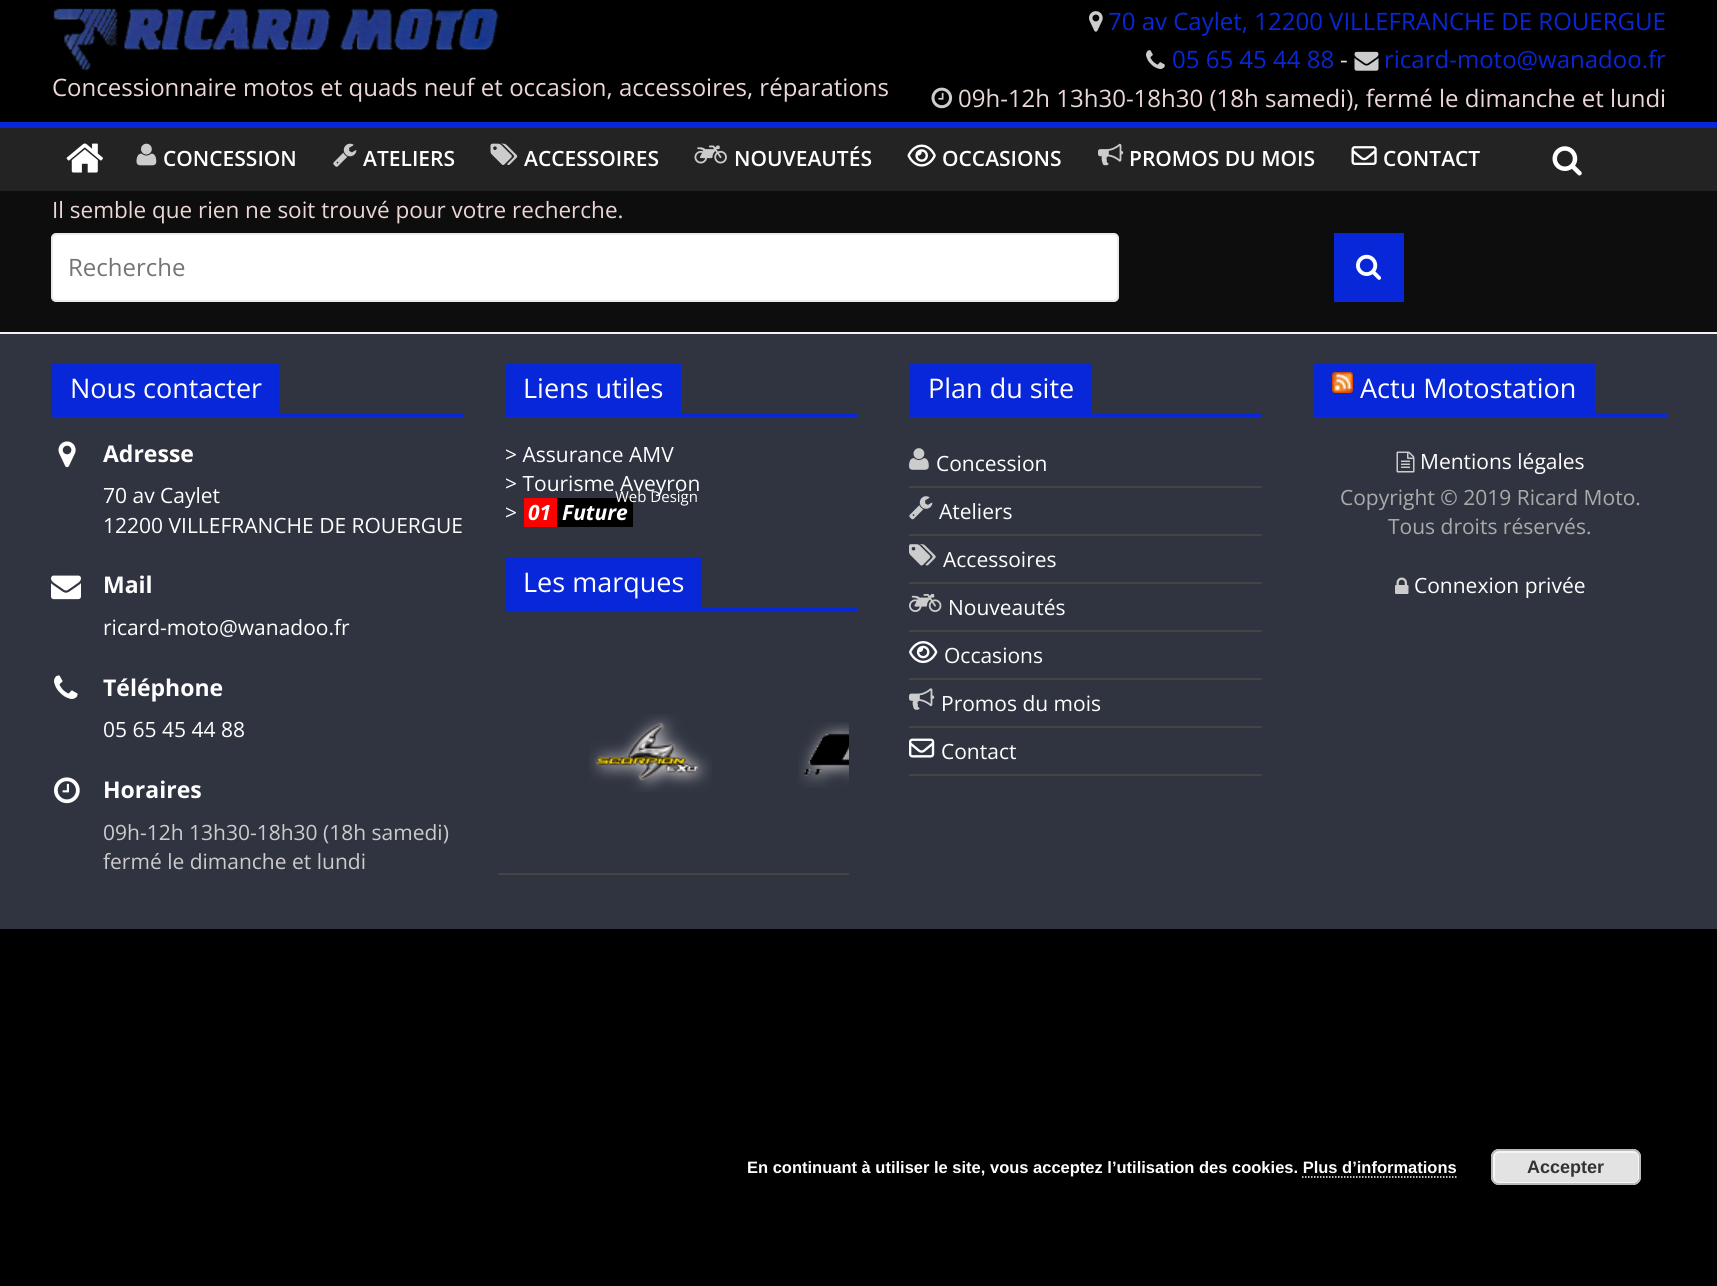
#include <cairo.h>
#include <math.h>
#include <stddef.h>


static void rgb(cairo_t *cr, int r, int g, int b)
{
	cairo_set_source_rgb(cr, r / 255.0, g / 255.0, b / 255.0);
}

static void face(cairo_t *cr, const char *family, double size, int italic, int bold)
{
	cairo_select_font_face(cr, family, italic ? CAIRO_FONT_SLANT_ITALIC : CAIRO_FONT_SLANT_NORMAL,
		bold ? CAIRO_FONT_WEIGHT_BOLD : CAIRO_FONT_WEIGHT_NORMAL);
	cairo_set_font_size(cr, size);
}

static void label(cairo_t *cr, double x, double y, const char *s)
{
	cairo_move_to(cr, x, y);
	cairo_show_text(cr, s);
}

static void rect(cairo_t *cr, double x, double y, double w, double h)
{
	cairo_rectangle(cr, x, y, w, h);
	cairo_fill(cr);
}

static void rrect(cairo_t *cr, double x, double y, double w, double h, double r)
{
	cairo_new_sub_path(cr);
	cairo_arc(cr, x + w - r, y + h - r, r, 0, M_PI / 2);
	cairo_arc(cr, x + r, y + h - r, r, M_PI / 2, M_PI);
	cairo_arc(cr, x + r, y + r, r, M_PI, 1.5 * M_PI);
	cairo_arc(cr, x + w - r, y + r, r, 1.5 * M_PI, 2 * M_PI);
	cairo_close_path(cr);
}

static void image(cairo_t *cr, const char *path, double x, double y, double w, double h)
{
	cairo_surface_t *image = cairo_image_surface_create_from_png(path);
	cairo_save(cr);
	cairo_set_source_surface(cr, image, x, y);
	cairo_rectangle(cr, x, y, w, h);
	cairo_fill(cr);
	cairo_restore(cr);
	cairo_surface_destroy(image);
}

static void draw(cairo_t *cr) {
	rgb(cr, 0, 0, 0);
	cairo_paint(cr);
	image(cr, "image0.png", 53, 8, 446, 63);
	face(cr, "Open Sans", 24, 0, 0);
	rgb(cr, 236, 215, 215);
	label(cr, 52, 96, "Concessionnaire motos et quads neuf et occasion, accessoires, réparations");
	image(cr, "image1.png", 1089, 11, 14, 21);
	rgb(cr, 8, 39, 216);
	label(cr, 1108, 30, "70 av Caylet, 12200 VILLEFRANCHE DE ROUERGUE");
	image(cr, "image2.png", 1146, 50, 19, 19);
	label(cr, 1172, 68, "05 65 45 44 88");
	rgb(cr, 236, 215, 215);
	label(cr, 1340, 68, "-");
	image(cr, "image3.png", 1354, 51, 25, 20);
	rgb(cr, 8, 39, 216);
	label(cr, 1384, 68, "ricard-moto@wanadoo.fr");
	image(cr, "image4.png", 931, 87, 22, 22);
	rgb(cr, 236, 215, 215);
	label(cr, 958, 107, "09h-12h 13h30-18h30 (18h samedi), fermé le dimanche et lundi");
	rgb(cr, 35, 35, 35);
	rect(cr, 0, 128, 1717, 63);
	rgb(cr, 8, 39, 216);
	rect(cr, 0, 122, 1717, 6);
	image(cr, "image5.png", 66, 143, 37, 30);
	image(cr, "image6.png", 136, 143, 21, 23);
	face(cr, "Open Sans SemiBold", 21, 0, 0);
	rgb(cr, 255, 255, 255);
	label(cr, 163, 166, "CONCESSION");
	image(cr, "image7.png", 333, 143, 24, 24);
	label(cr, 363, 166, "ATELIERS");
	image(cr, "image8.png", 490, 143, 28, 22);
	label(cr, 524, 166, "ACCESSOIRES");
	image(cr, "image9.png", 694, 145, 33, 19);
	label(cr, 734, 166, "NOUVEAUTÉS");
	image(cr, "image10.png", 907, 144, 29, 23);
	label(cr, 942, 166, "OCCASIONS");
	image(cr, "image11.png", 1098, 143, 26, 23);
	label(cr, 1129, 166, "PROMOS DU MOIS");
	image(cr, "image12.png", 1351, 146, 26, 19);
	label(cr, 1383, 166, "CONTACT");
	image(cr, "image13.png", 1552, 146, 30, 30);
	rgb(cr, 14, 13, 13);
	rect(cr, 0, 191, 1717, 141);
	face(cr, "Open Sans", 22.5, 0, 0);
	rgb(cr, 236, 215, 215);
	label(cr, 52, 218, "Il semble que rien ne soit trouvé pour votre recherche.");
	rgb(cr, 255, 255, 255);
	rrect(cr, 52, 234, 1066, 67, 4);
	cairo_fill_preserve(cr);
	rgb(cr, 234, 234, 234);
	cairo_stroke(cr);
	face(cr, "Open Sans", 24, 0, 0);
	rgb(cr, 117, 117, 117);
	label(cr, 68, 276, "Recherche");
	rgb(cr, 8, 39, 216);
	rect(cr, 1334, 233, 70, 69);
	image(cr, "image14.png", 1356, 254, 25, 26);
	rgb(cr, 48, 52, 64);
	rect(cr, 0, 334, 1717, 595);
	rgb(cr, 242, 242, 242);
	rect(cr, 0, 332, 1717, 2);
	rgb(cr, 8, 39, 216);
	rect(cr, 51, 414, 413, 3);
	rect(cr, 51, 363, 228, 51);
	face(cr, "Open Sans", 27, 0, 0);
	rgb(cr, 255, 255, 255);
	label(cr, 70, 398, "Nous contacter");
	image(cr, "image15.png", 58, 441, 18, 27);
	face(cr, "Open Sans", 23, 0, 1);
	label(cr, 103, 462, "Adresse");
	face(cr, "Open Sans", 21, 0, 0);
	label(cr, 103, 503, "70 av Caylet");
	label(cr, 103, 533, "12200 VILLEFRANCHE DE ROUERGUE");
	image(cr, "image16.png", 51, 575, 30, 25);
	face(cr, "Open Sans", 23, 0, 1);
	label(cr, 103, 593, "Mail");
	face(cr, "Open Sans", 21, 0, 0);
	label(cr, 103, 635, "ricard-moto@wanadoo.fr");
	image(cr, "image17.png", 54, 675, 24, 24);
	face(cr, "Open Sans", 23, 0, 1);
	label(cr, 103, 696, "Téléphone");
	face(cr, "Open Sans", 21, 0, 0);
	label(cr, 103, 737, "05 65 45 44 88");
	image(cr, "image18.png", 54, 777, 26, 27);
	face(cr, "Open Sans", 23, 0, 1);
	label(cr, 103, 798, "Horaires");
	face(cr, "Open Sans", 21, 0, 0);
	rgb(cr, 204, 204, 204);
	label(cr, 103, 840, "09h-12h 13h30-18h30 (18h samedi)");
	label(cr, 103, 869, "fermé le dimanche et lundi");
	rgb(cr, 8, 39, 216);
	rect(cr, 506, 414, 351, 3);
	rect(cr, 506, 363, 175, 51);
	face(cr, "Open Sans", 27, 0, 0);
	rgb(cr, 255, 255, 255);
	label(cr, 523, 398, "Liens utiles");
	face(cr, "Open Sans", 21, 0, 0);
	label(cr, 505, 462, "> Assurance AMV");
	label(cr, 505, 491, "> Tourisme Aveyron");
	rgb(cr, 0, 0, 0);
	rect(cr, 557, 498, 76, 29);
	face(cr, "Open Sans", 15, 0, 0);
	rgb(cr, 255, 255, 255);
	label(cr, 615, 502, "Web Design");
	face(cr, "Open Sans", 21, 0, 0);
	label(cr, 505, 520, ">");
	rgb(cr, 255, 0, 0);
	rect(cr, 524, 498, 33, 29);
	face(cr, "Open Sans", 21, 1, 1);
	rgb(cr, 255, 255, 255);
	label(cr, 528, 520, "01");
	label(cr, 562, 520, "Future");
	rgb(cr, 8, 39, 216);
	rect(cr, 506, 608, 351, 3);
	rect(cr, 506, 558, 196, 50);
	face(cr, "Open Sans", 27, 0, 0);
	rgb(cr, 255, 255, 255);
	label(cr, 523, 592, "Les marques");
	rgb(cr, 68, 68, 68);
	rect(cr, 498, 873, 351, 2);
	image(cr, "image19.png", 589, 714, 123, 78);
	image(cr, "image20.png", 798, 722, 51, 66);
	rgb(cr, 8, 39, 216);
	rect(cr, 909, 414, 353, 3);
	rect(cr, 909, 363, 183, 51);
	rgb(cr, 255, 255, 255);
	label(cr, 928, 398, "Plan du site");
	rgb(cr, 68, 68, 68);
	rect(cr, 909, 486, 353, 2);
	image(cr, "image21.png", 909, 448, 20, 22);
	face(cr, "Open Sans", 21, 0, 0);
	rgb(cr, 255, 255, 255);
	label(cr, 936, 471, "Concession");
	rgb(cr, 68, 68, 68);
	rect(cr, 909, 534, 353, 2);
	image(cr, "image22.png", 909, 496, 24, 24);
	rgb(cr, 255, 255, 255);
	label(cr, 939, 519, "Ateliers");
	rgb(cr, 68, 68, 68);
	rect(cr, 909, 582, 353, 2);
	image(cr, "image23.png", 909, 544, 27, 22);
	rgb(cr, 255, 255, 255);
	label(cr, 943, 567, "Accessoires");
	rgb(cr, 68, 68, 68);
	rect(cr, 909, 630, 353, 2);
	image(cr, "image24.png", 909, 594, 33, 18);
	rgb(cr, 255, 255, 255);
	label(cr, 948, 615, "Nouveautés");
	rgb(cr, 68, 68, 68);
	rect(cr, 909, 678, 353, 2);
	image(cr, "image25.png", 909, 641, 29, 23);
	rgb(cr, 255, 255, 255);
	label(cr, 944, 663, "Occasions");
	rgb(cr, 68, 68, 68);
	rect(cr, 909, 726, 353, 2);
	image(cr, "image26.png", 909, 688, 26, 22);
	rgb(cr, 255, 255, 255);
	label(cr, 941, 711, "Promos du mois");
	rgb(cr, 68, 68, 68);
	rect(cr, 909, 774, 353, 2);
	image(cr, "image27.png", 909, 738, 26, 20);
	rgb(cr, 255, 255, 255);
	label(cr, 941, 759, "Contact");
	rgb(cr, 8, 39, 216);
	rect(cr, 1314, 414, 353, 3);
	rect(cr, 1314, 363, 281, 51);
	image(cr, "image28.png", 1332, 372, 21, 21);
	face(cr, "Open Sans", 27, 0, 0);
	rgb(cr, 255, 255, 255);
	label(cr, 1360, 398, "Actu Motostation");
	image(cr, "image29.png", 1396, 451, 19, 22);
	face(cr, "Open Sans", 21, 0, 0);
	label(cr, 1420, 469, "Mentions légales");
	rgb(cr, 170, 170, 170);
	label(cr, 1340, 505, "Copyright © 2019 Ricard Moto.");
	label(cr, 1388, 534, "Tous droits réservés.");
	image(cr, "image30.png", 1395, 577, 14, 17);
	rgb(cr, 255, 255, 255);
	label(cr, 1414, 593, "Connexion privée");
	face(cr, "Liberation Sans", 16.5, 0, 1);
	label(cr, 747, 1173, "En continuant à utiliser le site, vous acceptez l’utilisation des cookies. Plus d’informations");
	rgb(cr, 227, 227, 227);
	rrect(cr, 1491, 1149, 150, 36, 8);
	cairo_fill(cr);
	rrect(cr, 1494, 1152, 145, 31, 5);
	rgb(cr, 246, 246, 246);
	cairo_stroke(cr);
	rrect(cr, 1492, 1150, 148, 34, 7);
	rgb(cr, 187, 187, 187);
	cairo_stroke(cr);
	face(cr, "Liberation Sans", 18, 0, 1);
	rgb(cr, 51, 51, 51);
	label(cr, 1527, 1173, "Accepter");
	cairo_new_path(cr);
	cairo_move_to(cr, 1302, 1177);
	cairo_line_to(cr, 1456.5, 1177);
	rgb(cr, 255, 255, 255);
	cairo_set_line_width(cr, 1.5);
	cairo_set_dash(cr, (double[]){1.5, 1.5}, 2, 0);
	cairo_stroke(cr);
}

int main(void) {
	cairo_surface_t *surface = cairo_image_surface_create(CAIRO_FORMAT_RGB24, 1717, 1286);
	cairo_t *cr = cairo_create(surface);
	cairo_font_options_t *options = cairo_font_options_create();
	cairo_font_options_set_hint_metrics(options, CAIRO_HINT_METRICS_OFF);
	cairo_font_options_set_hint_style(options, CAIRO_HINT_STYLE_NONE);
	cairo_set_font_options(cr, options);
	cairo_set_miter_limit(cr, 4);
	draw(cr);
	cairo_surface_write_to_png(surface, "render.png");
	cairo_font_options_destroy(options);
	cairo_destroy(cr);
	cairo_surface_destroy(surface);
	return 0;
}
